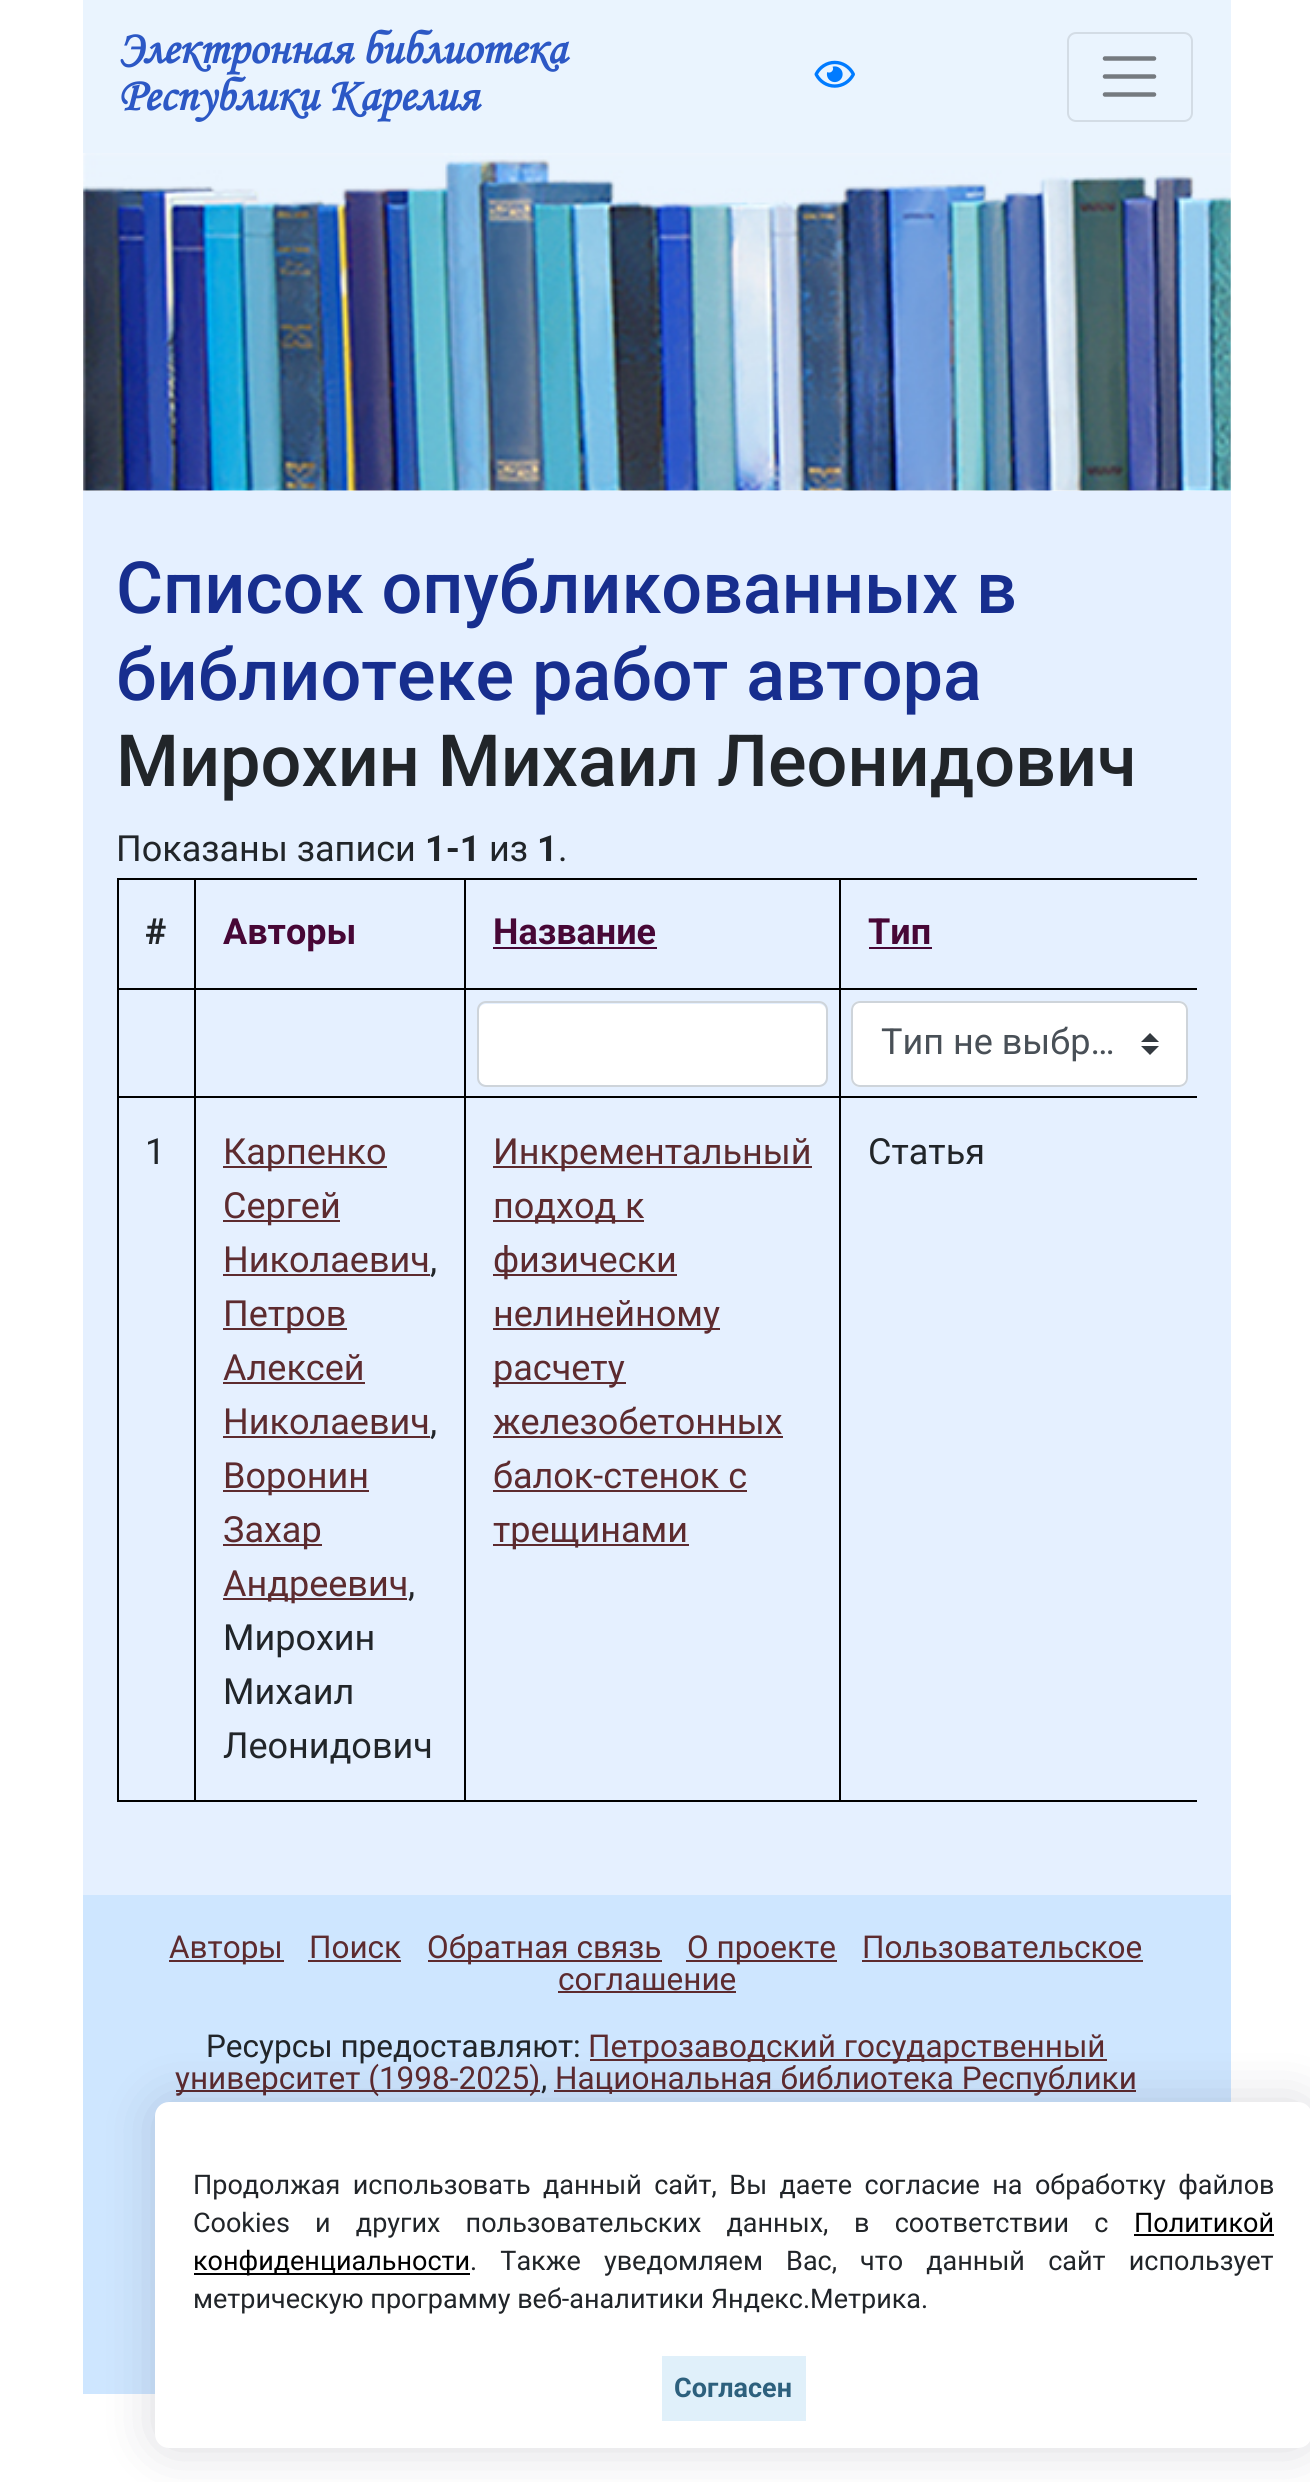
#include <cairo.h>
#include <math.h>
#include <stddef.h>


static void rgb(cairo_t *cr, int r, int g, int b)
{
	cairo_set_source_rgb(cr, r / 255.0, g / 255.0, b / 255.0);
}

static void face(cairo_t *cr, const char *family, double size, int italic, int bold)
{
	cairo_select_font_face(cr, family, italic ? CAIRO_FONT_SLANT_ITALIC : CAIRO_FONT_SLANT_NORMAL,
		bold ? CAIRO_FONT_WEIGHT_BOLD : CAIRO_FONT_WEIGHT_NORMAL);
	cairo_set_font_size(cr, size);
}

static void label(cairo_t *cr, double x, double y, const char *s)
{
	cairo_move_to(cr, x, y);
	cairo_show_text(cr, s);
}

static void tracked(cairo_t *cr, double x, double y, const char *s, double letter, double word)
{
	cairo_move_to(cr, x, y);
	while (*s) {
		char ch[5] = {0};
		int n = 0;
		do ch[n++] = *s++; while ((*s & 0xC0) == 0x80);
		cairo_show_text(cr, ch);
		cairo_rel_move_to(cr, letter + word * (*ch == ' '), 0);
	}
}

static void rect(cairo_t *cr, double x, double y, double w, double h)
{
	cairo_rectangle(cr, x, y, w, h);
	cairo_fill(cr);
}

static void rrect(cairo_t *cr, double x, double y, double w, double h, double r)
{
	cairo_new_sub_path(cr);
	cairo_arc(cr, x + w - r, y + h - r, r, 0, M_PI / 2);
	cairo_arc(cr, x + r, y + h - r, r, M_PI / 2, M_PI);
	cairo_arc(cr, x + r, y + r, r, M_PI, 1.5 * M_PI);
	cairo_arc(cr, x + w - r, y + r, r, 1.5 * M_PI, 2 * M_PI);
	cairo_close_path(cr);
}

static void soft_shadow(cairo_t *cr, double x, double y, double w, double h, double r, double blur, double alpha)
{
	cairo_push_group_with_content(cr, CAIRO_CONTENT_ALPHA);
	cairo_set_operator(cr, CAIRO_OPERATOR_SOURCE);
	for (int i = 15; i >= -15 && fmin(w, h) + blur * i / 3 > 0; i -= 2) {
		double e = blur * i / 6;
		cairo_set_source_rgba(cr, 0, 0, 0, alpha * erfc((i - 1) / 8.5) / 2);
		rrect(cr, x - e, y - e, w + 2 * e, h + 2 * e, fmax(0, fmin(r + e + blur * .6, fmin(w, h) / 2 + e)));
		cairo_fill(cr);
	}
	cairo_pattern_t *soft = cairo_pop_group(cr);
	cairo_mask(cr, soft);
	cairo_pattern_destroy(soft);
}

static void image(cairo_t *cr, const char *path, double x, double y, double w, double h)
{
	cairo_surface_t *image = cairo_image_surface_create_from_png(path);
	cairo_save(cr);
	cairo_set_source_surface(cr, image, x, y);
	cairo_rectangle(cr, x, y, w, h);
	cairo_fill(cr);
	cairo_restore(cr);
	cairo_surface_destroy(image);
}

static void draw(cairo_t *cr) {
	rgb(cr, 255, 255, 255);
	cairo_paint(cr);
	rgb(cr, 234, 244, 254);
	rect(cr, 83, 0, 1148, 153);
	face(cr, "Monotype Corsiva", 46.75, 1, 1);
	rgb(cr, 44, 88, 197);
	label(cr, 118, 63, "Электронная библиотека");
	label(cr, 118, 110, "Республики Карелия");
	image(cr, "image0.png", 814, 60, 41, 28);
	rrect(cr, 1068, 33, 124, 88, 8);
	rgb(cr, 211, 220, 229);
	cairo_stroke(cr);
	cairo_new_path(cr);
	cairo_move_to(cr, 1105, 58.5);
	cairo_line_to(cr, 1154, 58.5);
	cairo_move_to(cr, 1105, 76.5);
	cairo_line_to(cr, 1154, 76.5);
	cairo_move_to(cr, 1105, 94.5);
	cairo_line_to(cr, 1154, 94.5);
	rgb(cr, 117, 122, 127);
	cairo_set_line_width(cr, 4.5);
	cairo_set_line_cap(cr, CAIRO_LINE_CAP_ROUND);
	cairo_stroke(cr);
	image(cr, "image1.png", 83, 153, 1148, 338);
	rgb(cr, 229, 240, 255);
	rect(cr, 83, 491, 1148, 1404);
	face(cr, "Roboto Medium", 72, 0, 0);
	rgb(cr, 23, 46, 142);
	label(cr, 116, 613, "Список опубликованных в");
	label(cr, 116, 700, "библиотеке работ автора");
	rgb(cr, 33, 37, 41);
	label(cr, 116, 786, "Мирохин Михаил Леонидович");
	face(cr, "Roboto", 36, 0, 0);
	label(cr, 116, 861, "Показаны записи");
	face(cr, "Roboto", 36, 0, 1);
	label(cr, 425, 861, "1-1");
	face(cr, "Roboto", 36, 0, 0);
	label(cr, 489, 861, "из");
	face(cr, "Roboto", 36, 0, 1);
	label(cr, 537, 861, "1");
	face(cr, "Roboto", 36, 0, 0);
	label(cr, 558, 861, ".");
	rgb(cr, 0, 0, 0);
	rect(cr, 117, 878, 1080, 2);
	rect(cr, 117, 988, 1080, 2);
	rect(cr, 117, 1096, 1080, 2);
	rect(cr, 117, 1800, 1080, 2);
	rect(cr, 117, 1096, 2, 706);
	rect(cr, 117, 988, 2, 110);
	rect(cr, 117, 878, 2, 112);
	face(cr, "Roboto", 36, 0, 1);
	rgb(cr, 33, 37, 41);
	label(cr, 145, 944, "#");
	rgb(cr, 71, 7, 54);
	label(cr, 223, 944, "Авторы");
	label(cr, 493, 944, "Название");
	rect(cr, 493, 947, 164, 2);
	label(cr, 868, 944, "Тип");
	rect(cr, 869, 947, 63, 2);
	rgb(cr, 255, 255, 255);
	rrect(cr, 479, 1004, 347, 81, 7);
	cairo_fill(cr);
	rrect(cr, 478, 1002, 349, 84, 8);
	rgb(cr, 206, 212, 218);
	cairo_set_line_width(cr, 2);
	cairo_set_line_cap(cr, CAIRO_LINE_CAP_BUTT);
	cairo_stroke(cr);
	rgb(cr, 255, 255, 255);
	rrect(cr, 851, 1001, 337, 86, 9);
	cairo_fill(cr);
	rgb(cr, 52, 58, 64);
	cairo_new_path(cr);
	cairo_move_to(cr, 1150, 1033);
	cairo_line_to(cr, 1141, 1042);
	cairo_line_to(cr, 1159, 1042);
	cairo_close_path(cr);
	cairo_move_to(cr, 1150, 1055);
	cairo_line_to(cr, 1141, 1046);
	cairo_line_to(cr, 1159, 1046);
	cairo_close_path(cr);
	cairo_fill(cr);
	rrect(cr, 852, 1002, 335, 84, 8);
	rgb(cr, 206, 212, 218);
	cairo_stroke(cr);
	face(cr, "Roboto", 36, 0, 0);
	rgb(cr, 73, 80, 87);
	label(cr, 881, 1054, "Тип не выбр…");
	rgb(cr, 33, 37, 41);
	label(cr, 145, 1164, "1");
	rgb(cr, 0, 0, 0);
	rect(cr, 194, 878, 2, 924);
	rgb(cr, 93, 43, 47);
	rect(cr, 223, 1166, 164, 2);
	label(cr, 223, 1164, "Карпенко");
	rect(cr, 223, 1220, 117, 2);
	label(cr, 223, 1218, "Сергей");
	label(cr, 223, 1272, "Николаевич");
	rect(cr, 223, 1274, 207, 2);
	rgb(cr, 33, 37, 41);
	label(cr, 430, 1272, ",");
	rgb(cr, 93, 43, 47);
	rect(cr, 223, 1328, 124, 2);
	label(cr, 223, 1326, "Петров");
	label(cr, 223, 1380, "Алексей");
	rect(cr, 223, 1382, 142, 2);
	label(cr, 223, 1434, "Николаевич");
	rect(cr, 223, 1436, 207, 2);
	rgb(cr, 33, 37, 41);
	label(cr, 430, 1434, ",");
	rgb(cr, 93, 43, 47);
	rect(cr, 223, 1490, 146, 2);
	label(cr, 223, 1488, "Воронин");
	rect(cr, 223, 1544, 99, 2);
	label(cr, 223, 1542, "Захар");
	rect(cr, 223, 1598, 184, 2);
	label(cr, 223, 1596, "Андреевич");
	rgb(cr, 33, 37, 41);
	label(cr, 408, 1596, ",");
	label(cr, 223, 1650, "Мирохин");
	label(cr, 223, 1704, "Михаил");
	label(cr, 223, 1758, "Леонидович");
	rgb(cr, 0, 0, 0);
	rect(cr, 464, 878, 2, 924);
	rgb(cr, 93, 43, 47);
	rect(cr, 493, 1166, 319, 2);
	label(cr, 493, 1164, "Инкрементальный");
	rect(cr, 493, 1220, 151, 2);
	label(cr, 493, 1218, "подход к");
	rect(cr, 493, 1274, 184, 2);
	label(cr, 493, 1272, "физически");
	rect(cr, 493, 1328, 227, 2);
	label(cr, 493, 1326, "нелинейному");
	rect(cr, 493, 1382, 133, 2);
	label(cr, 493, 1380, "расчету");
	label(cr, 493, 1434, "железобетонных");
	rect(cr, 493, 1436, 290, 2);
	label(cr, 493, 1488, "балок-стенок с");
	rect(cr, 493, 1490, 254, 2);
	rect(cr, 493, 1544, 196, 2);
	label(cr, 493, 1542, "трещинами");
	rgb(cr, 0, 0, 0);
	rect(cr, 839, 878, 2, 924);
	rgb(cr, 33, 37, 41);
	label(cr, 868, 1164, "Статья");
	rgb(cr, 206, 230, 255);
	rect(cr, 83, 1895, 1148, 499);
	rgb(cr, 93, 43, 47);
	rect(cr, 169, 1960, 115, 2);
	face(cr, "Roboto", 31.5, 0, 0);
	label(cr, 169, 1958, "Авторы");
	label(cr, 309, 1958, "Поиск");
	rect(cr, 308, 1960, 93, 2);
	rect(cr, 428, 1960, 234, 2);
	label(cr, 427, 1958, "Обратная связь");
	rect(cr, 686, 1960, 151, 2);
	label(cr, 687, 1958, "О проекте");
	label(cr, 862, 1958, "Пользовательское");
	rect(cr, 862, 1960, 281, 2);
	label(cr, 558, 1990, "соглашение");
	rect(cr, 558, 1991, 178, 2);
	rgb(cr, 33, 37, 41);
	label(cr, 206, 2057, "Ресурсы предоставляют:");
	rgb(cr, 93, 43, 47);
	rect(cr, 590, 2059, 517, 2);
	label(cr, 588, 2057, "Петрозаводский государственный");
	rect(cr, 176, 2090, 364, 2);
	label(cr, 175, 2089, "университет (1998-2025)");
	rgb(cr, 33, 37, 41);
	label(cr, 541, 2089, ",");
	rgb(cr, 93, 43, 47);
	rect(cr, 554, 2090, 582, 2);
	label(cr, 555, 2089, "Национальная библиотека Республики");
	rgb(cr, 5, 0, 31);
	soft_shadow(cr, 155, 2102, 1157, 346, 14, 27, 0.15);
	rgb(cr, 255, 255, 255);
	rrect(cr, 155, 2102, 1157, 346, 14);
	cairo_fill(cr);
	face(cr, "Roboto", 27, 0, 0);
	rgb(cr, 33, 37, 41);
	tracked(cr, 193, 2194, "Продолжая использовать данный сайт, Вы даете согласие на обработку файлов", 0, 5.75);
	tracked(cr, 193, 2232, "Cookies и других пользовательских данных,", 0, 18.5);
	tracked(cr, 854, 2232, "в соответствии с", 0, 18.5);
	rgb(cr, 0, 0, 0);
	label(cr, 1134, 2232, "Политикой");
	rect(cr, 1134, 2234, 140, 2);
	rect(cr, 194, 2273, 276, 2);
	label(cr, 193, 2270, "конфиденциальности");
	rgb(cr, 33, 37, 41);
	tracked(cr, 470, 2270, ". Также уведомляем Вас,", 0, 16.5);
	tracked(cr, 860, 2270, "что данный сайт использует", 0, 16.5);
	label(cr, 193, 2308, "метрическую программу веб-аналитики Яндекс.Метрика.");
	rgb(cr, 224, 240, 250);
	rect(cr, 662, 2356, 144, 65);
	face(cr, "Roboto", 27, 0, 1);
	rgb(cr, 45, 96, 125);
	label(cr, 674, 2397, "Согласен");
}

int main(void) {
	cairo_surface_t *surface = cairo_image_surface_create(CAIRO_FORMAT_RGB24, 1310, 2482);
	cairo_t *cr = cairo_create(surface);
	cairo_font_options_t *options = cairo_font_options_create();
	cairo_font_options_set_hint_metrics(options, CAIRO_HINT_METRICS_OFF);
	cairo_font_options_set_hint_style(options, CAIRO_HINT_STYLE_NONE);
	cairo_set_font_options(cr, options);
	cairo_set_miter_limit(cr, 4);
	draw(cr);
	cairo_surface_write_to_png(surface, "render.png");
	cairo_font_options_destroy(options);
	cairo_destroy(cr);
	cairo_surface_destroy(surface);
	return 0;
}
